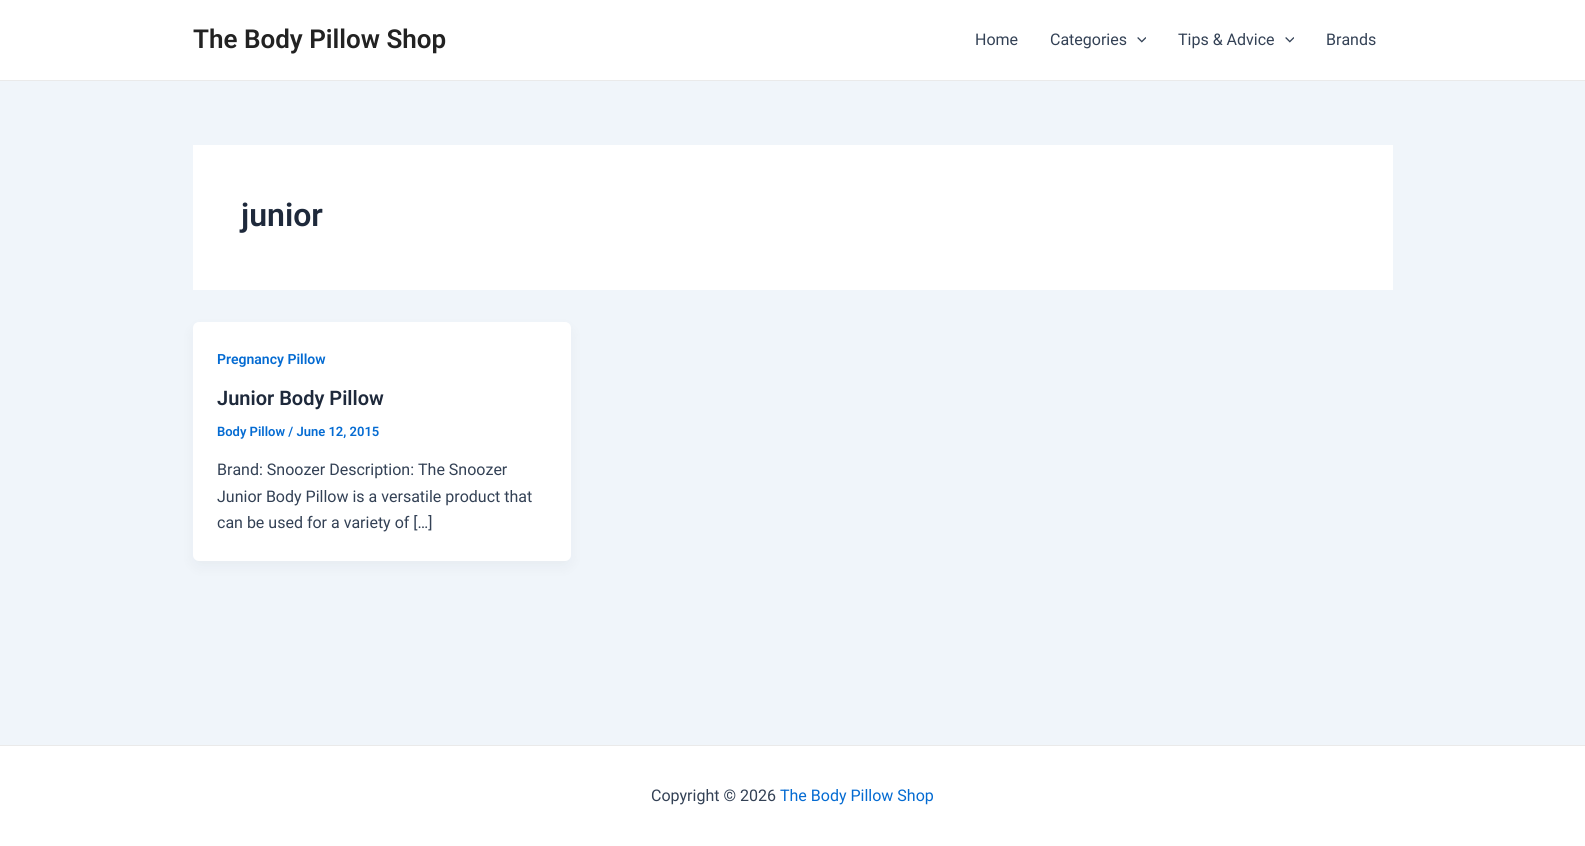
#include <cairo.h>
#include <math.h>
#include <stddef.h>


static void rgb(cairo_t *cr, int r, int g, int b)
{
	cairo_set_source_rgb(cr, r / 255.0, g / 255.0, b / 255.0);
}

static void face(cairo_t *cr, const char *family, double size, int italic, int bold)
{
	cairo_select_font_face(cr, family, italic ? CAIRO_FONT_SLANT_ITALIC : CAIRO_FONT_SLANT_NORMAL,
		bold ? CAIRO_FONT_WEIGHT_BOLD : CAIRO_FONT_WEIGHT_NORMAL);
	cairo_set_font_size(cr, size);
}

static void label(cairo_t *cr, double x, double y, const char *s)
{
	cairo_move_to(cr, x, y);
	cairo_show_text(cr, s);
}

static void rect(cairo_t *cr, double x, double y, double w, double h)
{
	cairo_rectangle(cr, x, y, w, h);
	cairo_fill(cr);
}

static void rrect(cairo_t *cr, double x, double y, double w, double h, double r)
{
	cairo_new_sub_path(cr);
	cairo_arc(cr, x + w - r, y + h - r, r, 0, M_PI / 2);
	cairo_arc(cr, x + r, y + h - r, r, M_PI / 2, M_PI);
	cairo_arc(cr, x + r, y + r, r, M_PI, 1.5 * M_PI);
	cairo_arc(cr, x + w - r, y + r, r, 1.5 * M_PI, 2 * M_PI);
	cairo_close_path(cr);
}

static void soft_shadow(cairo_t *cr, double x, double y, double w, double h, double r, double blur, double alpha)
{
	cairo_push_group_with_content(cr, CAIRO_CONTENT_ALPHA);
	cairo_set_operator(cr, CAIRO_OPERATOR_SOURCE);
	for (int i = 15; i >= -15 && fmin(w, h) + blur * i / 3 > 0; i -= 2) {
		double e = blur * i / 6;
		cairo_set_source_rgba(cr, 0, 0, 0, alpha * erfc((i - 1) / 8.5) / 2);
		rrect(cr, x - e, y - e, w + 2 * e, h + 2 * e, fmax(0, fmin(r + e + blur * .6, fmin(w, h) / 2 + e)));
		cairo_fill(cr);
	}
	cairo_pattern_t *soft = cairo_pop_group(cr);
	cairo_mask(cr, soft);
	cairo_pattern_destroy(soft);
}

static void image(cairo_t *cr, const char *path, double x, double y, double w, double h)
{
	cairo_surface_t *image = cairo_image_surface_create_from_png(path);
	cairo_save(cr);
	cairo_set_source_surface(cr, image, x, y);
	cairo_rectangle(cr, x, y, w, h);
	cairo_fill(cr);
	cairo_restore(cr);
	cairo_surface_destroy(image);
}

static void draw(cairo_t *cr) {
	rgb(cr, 240, 245, 250);
	cairo_paint(cr);
	rgb(cr, 255, 255, 255);
	rect(cr, 0, 0, 1585, 80);
	rgb(cr, 234, 234, 234);
	rect(cr, 0, 80, 1585, 1);
	face(cr, "Roboto SemiBold", 26, 0, 0);
	rgb(cr, 34, 34, 34);
	label(cr, 193, 48, "The Body Pillow Shop");
	face(cr, "Roboto", 16, 0, 0);
	rgb(cr, 51, 65, 85);
	label(cr, 975, 45, "Home");
	label(cr, 1050, 45, "Categories");
	image(cr, "image0.png", 1137, 37, 9, 6);
	label(cr, 1178, 45, "Tips & Advice");
	image(cr, "image0.png", 1285, 37, 9, 6);
	label(cr, 1326, 45, "Brands");
	rgb(cr, 255, 255, 255);
	rect(cr, 193, 145, 1200, 145);
	face(cr, "Roboto SemiBold", 32, 0, 0);
	rgb(cr, 30, 41, 59);
	label(cr, 241, 226, "junior");
	rgb(cr, 16, 24, 40);
	soft_shadow(cr, 195, 330, 374, 235, 4, 7.5, 0.05);
	rgb(cr, 255, 255, 255);
	rrect(cr, 193, 322, 378, 239, 6);
	cairo_fill(cr);
	face(cr, "Roboto SemiBold", 14, 0, 0);
	rgb(cr, 4, 107, 210);
	label(cr, 217, 364, "Pregnancy Pillow");
	face(cr, "Roboto SemiBold", 20, 0, 0);
	rgb(cr, 30, 41, 59);
	label(cr, 217, 405, "Junior Body Pillow");
	face(cr, "Roboto SemiBold", 13, 0, 0);
	rgb(cr, 4, 107, 210);
	label(cr, 217, 436, "Body Pillow / June 12, 2015");
	face(cr, "Roboto", 16, 0, 0);
	rgb(cr, 51, 65, 85);
	label(cr, 217, 475, "Brand: Snoozer Description: The Snoozer");
	label(cr, 217, 502, "Junior Body Pillow is a versatile product that");
	label(cr, 217, 528, "can be used for a variety of […]");
	rgb(cr, 255, 255, 255);
	rect(cr, 0, 746, 1585, 100);
	rgb(cr, 234, 234, 234);
	rect(cr, 0, 745, 1585, 1);
	rgb(cr, 51, 65, 85);
	label(cr, 651, 801, "Copyright © 2026");
	rgb(cr, 4, 107, 210);
	label(cr, 780, 801, "The Body Pillow Shop");
}

int main(void) {
	cairo_surface_t *surface = cairo_image_surface_create(CAIRO_FORMAT_RGB24, 1585, 846);
	cairo_t *cr = cairo_create(surface);
	cairo_font_options_t *options = cairo_font_options_create();
	cairo_font_options_set_hint_metrics(options, CAIRO_HINT_METRICS_OFF);
	cairo_font_options_set_hint_style(options, CAIRO_HINT_STYLE_NONE);
	cairo_set_font_options(cr, options);
	cairo_set_miter_limit(cr, 4);
	draw(cr);
	cairo_surface_write_to_png(surface, "render.png");
	cairo_font_options_destroy(options);
	cairo_destroy(cr);
	cairo_surface_destroy(surface);
	return 0;
}
